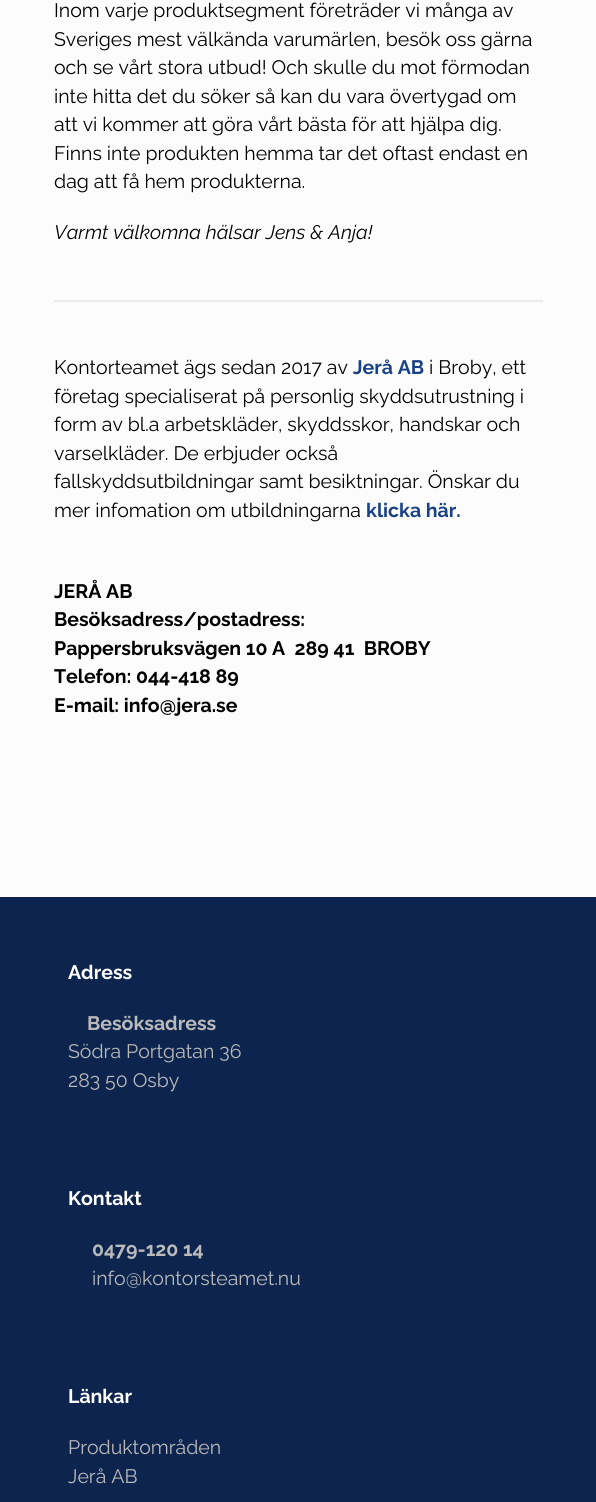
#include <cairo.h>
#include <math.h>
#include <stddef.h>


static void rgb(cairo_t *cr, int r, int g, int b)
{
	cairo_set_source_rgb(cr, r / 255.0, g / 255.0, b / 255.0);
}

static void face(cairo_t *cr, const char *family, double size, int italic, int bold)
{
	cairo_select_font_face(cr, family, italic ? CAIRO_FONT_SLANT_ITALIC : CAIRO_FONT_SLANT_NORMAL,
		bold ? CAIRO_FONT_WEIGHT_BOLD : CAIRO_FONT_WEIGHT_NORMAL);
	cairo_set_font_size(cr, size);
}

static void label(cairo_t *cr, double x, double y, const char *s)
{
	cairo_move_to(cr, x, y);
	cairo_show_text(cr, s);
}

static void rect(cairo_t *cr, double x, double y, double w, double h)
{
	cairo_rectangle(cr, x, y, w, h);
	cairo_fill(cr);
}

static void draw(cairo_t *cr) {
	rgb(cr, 252, 252, 252);
	cairo_paint(cr);
	face(cr, "Raleway", 19.5, 0, 0);
	rgb(cr, 0, 0, 0);
	label(cr, 54, 17, "Inom varje produktsegment företräder vi många av");
	label(cr, 54, 46, "Sveriges mest välkända varumärlen, besök oss gärna");
	label(cr, 54, 74, "och se vårt stora utbud! Och skulle du mot förmodan");
	label(cr, 54, 103, "inte hitta det du söker så kan du vara övertygad om");
	label(cr, 54, 131, "att vi kommer att göra vårt bästa för att hjälpa dig.");
	label(cr, 54, 160, "Finns inte produkten hemma tar det oftast endast en");
	label(cr, 54, 188, "dag att få hem produkterna.");
	face(cr, "Raleway", 19.5, 1, 0);
	label(cr, 54, 239, "Varmt välkomna hälsar Jens & Anja!");
	rgb(cr, 235, 235, 235);
	rect(cr, 54, 300, 489, 2);
	face(cr, "Raleway", 19.5, 0, 0);
	rgb(cr, 0, 0, 0);
	label(cr, 54, 374, "Kontorteamet ägs sedan 2017 av");
	face(cr, "Raleway", 19.5, 0, 1);
	rgb(cr, 24, 65, 134);
	label(cr, 353, 374, "Jerå AB");
	face(cr, "Raleway", 19.5, 0, 0);
	rgb(cr, 0, 0, 0);
	label(cr, 429, 374, "i Broby, ett");
	label(cr, 54, 403, "företag specialiserat på personlig skyddsutrustning i");
	label(cr, 54, 431, "form av bl.a arbetskläder, skyddsskor, handskar och");
	label(cr, 54, 460, "varselkläder. De erbjuder också");
	label(cr, 54, 488, "fallskyddsutbildningar samt besiktningar. Önskar du");
	label(cr, 54, 517, "mer infomation om utbildningarna");
	face(cr, "Raleway", 19.5, 0, 1);
	rgb(cr, 24, 65, 134);
	label(cr, 366, 517, "klicka här.");
	rgb(cr, 0, 0, 0);
	label(cr, 54, 598, "JERÅ AB");
	label(cr, 54, 626, "Besöksadress/postadress:");
	label(cr, 54, 655, "Pappersbruksvägen 10 A  289 41  BROBY");
	label(cr, 54, 683, "Telefon: 044-418 89");
	label(cr, 54, 712, "E-mail: info@jera.se");
	rgb(cr, 13, 37, 78);
	rect(cr, 0, 897, 596, 605);
	rgb(cr, 255, 255, 255);
	label(cr, 68, 979, "Adress");
	rgb(cr, 186, 186, 186);
	label(cr, 87, 1030, "Besöksadress");
	face(cr, "Raleway", 19.5, 0, 0);
	label(cr, 68, 1058, "Södra Portgatan 36");
	label(cr, 68, 1087, "283 50 Osby");
	face(cr, "Raleway", 19.5, 0, 1);
	rgb(cr, 255, 255, 255);
	label(cr, 68, 1205, "Kontakt");
	rgb(cr, 186, 186, 186);
	label(cr, 92, 1256, "0479-120 14");
	face(cr, "Raleway", 19.5, 0, 0);
	label(cr, 92, 1285, "info@kontorsteamet.nu");
	face(cr, "Raleway", 19.5, 0, 1);
	rgb(cr, 255, 255, 255);
	label(cr, 68, 1403, "Länkar");
	face(cr, "Raleway", 19.5, 0, 0);
	rgb(cr, 186, 186, 186);
	label(cr, 68, 1454, "Produktområden");
	label(cr, 68, 1483, "Jerå AB");
}

int main(void) {
	cairo_surface_t *surface = cairo_image_surface_create(CAIRO_FORMAT_RGB24, 596, 1502);
	cairo_t *cr = cairo_create(surface);
	cairo_font_options_t *options = cairo_font_options_create();
	cairo_font_options_set_hint_metrics(options, CAIRO_HINT_METRICS_OFF);
	cairo_font_options_set_hint_style(options, CAIRO_HINT_STYLE_NONE);
	cairo_set_font_options(cr, options);
	cairo_set_miter_limit(cr, 4);
	draw(cr);
	cairo_surface_write_to_png(surface, "render.png");
	cairo_font_options_destroy(options);
	cairo_destroy(cr);
	cairo_surface_destroy(surface);
	return 0;
}
